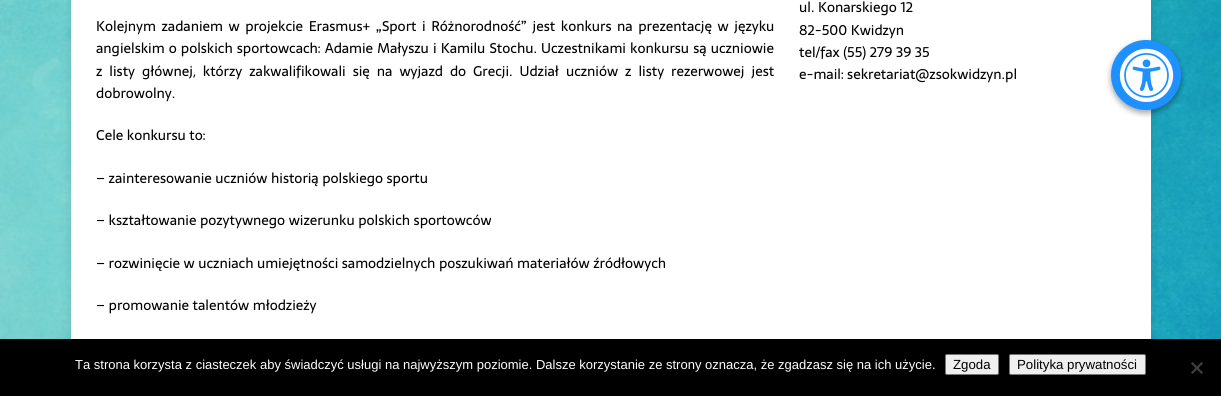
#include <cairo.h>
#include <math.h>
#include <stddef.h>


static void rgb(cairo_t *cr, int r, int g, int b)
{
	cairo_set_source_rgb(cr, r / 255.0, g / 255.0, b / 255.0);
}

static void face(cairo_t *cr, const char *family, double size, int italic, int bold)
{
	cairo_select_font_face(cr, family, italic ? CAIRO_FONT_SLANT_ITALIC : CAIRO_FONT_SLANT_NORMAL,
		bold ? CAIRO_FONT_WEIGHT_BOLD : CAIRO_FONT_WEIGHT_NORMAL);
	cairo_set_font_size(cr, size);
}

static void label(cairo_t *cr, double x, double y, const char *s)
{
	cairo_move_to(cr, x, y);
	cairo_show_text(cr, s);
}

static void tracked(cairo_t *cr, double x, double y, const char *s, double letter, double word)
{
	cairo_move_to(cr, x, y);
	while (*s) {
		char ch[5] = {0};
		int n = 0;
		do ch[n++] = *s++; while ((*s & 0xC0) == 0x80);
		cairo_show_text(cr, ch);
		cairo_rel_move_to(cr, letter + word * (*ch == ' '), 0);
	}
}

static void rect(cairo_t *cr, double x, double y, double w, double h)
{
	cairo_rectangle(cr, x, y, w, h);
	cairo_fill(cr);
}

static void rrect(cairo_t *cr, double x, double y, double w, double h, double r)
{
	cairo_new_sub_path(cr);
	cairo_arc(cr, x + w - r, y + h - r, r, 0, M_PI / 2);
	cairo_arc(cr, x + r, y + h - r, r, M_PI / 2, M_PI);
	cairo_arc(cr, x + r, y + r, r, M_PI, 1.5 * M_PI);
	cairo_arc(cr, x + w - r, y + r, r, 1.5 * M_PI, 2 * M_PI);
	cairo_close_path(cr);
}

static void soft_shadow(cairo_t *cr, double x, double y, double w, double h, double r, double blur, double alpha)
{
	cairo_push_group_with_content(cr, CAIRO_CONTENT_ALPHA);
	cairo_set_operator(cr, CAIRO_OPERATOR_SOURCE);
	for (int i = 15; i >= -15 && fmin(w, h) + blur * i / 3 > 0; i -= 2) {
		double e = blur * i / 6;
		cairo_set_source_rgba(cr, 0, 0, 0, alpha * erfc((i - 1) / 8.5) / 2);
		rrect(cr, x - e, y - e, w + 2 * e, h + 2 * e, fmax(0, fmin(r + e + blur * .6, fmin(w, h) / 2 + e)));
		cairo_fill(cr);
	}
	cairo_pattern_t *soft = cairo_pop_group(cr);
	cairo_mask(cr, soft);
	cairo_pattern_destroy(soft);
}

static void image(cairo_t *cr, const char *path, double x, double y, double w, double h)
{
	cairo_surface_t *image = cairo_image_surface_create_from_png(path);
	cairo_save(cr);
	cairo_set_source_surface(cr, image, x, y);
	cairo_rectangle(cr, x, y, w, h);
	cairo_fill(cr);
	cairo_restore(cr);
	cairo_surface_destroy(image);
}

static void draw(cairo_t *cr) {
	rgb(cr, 255, 255, 255);
	cairo_paint(cr);
	image(cr, "image0.png", 0, 0, 1221, 339);
	rgb(cr, 50, 50, 50);
	soft_shadow(cr, 71, -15, 1080, 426, 0, 5, 0.17);
	rgb(cr, 255, 255, 255);
	rect(cr, 71, 0, 1080, 339);
	face(cr, "Sarala", 14, 0, 0);
	rgb(cr, 0, 0, 0);
	tracked(cr, 96, 31, "Kolejnym zadaniem w projekcie Erasmus+ „Sport i Różnorodność” jest konkurs na prezentację w języku", 0, 2.1);
	tracked(cr, 96, 53, "angielskim o polskich sportowcach: Adamie Małyszu i Kamilu Stochu. Uczestnikami konkursu są uczniowie", 0, 0.6);
	tracked(cr, 96, 76, "z listy głównej, którzy zakwalifikowali się na wyjazd do Grecji. Udział uczniów z listy rezerwowej jest", 0, 3.5);
	label(cr, 96, 98, "dobrowolny.");
	label(cr, 96, 140, "Cele konkursu to:");
	label(cr, 96, 183, "– zainteresowanie uczniów historią polskiego sportu");
	label(cr, 96, 225, "– kształtowanie pozytywnego wizerunku polskich sportowców");
	label(cr, 96, 268, "– rozwinięcie w uczniach umiejętności samodzielnych poszukiwań materiałów źródłowych");
	label(cr, 96, 310, "– promowanie talentów młodzieży");
	label(cr, 799, 12, "ul. Konarskiego 12");
	label(cr, 799, 35, "82-500 Kwidzyn");
	label(cr, 799, 57, "tel/fax (55) 279 39 35");
	label(cr, 799, 79, "e-mail: sekretariat@zsokwidzyn.pl");
	rgb(cr, 0, 0, 0);
	soft_shadow(cr, 1111, 43, 70, 70, 35, 3, 0.23);
	soft_shadow(cr, 1111, 43, 70, 70, 35, 3, 0.16);
	rgb(cr, 30, 144, 255);
	cairo_arc(cr, 1146, 75, 35, 0, 2 * M_PI);
	cairo_fill(cr);
	image(cr, "image1.png", 1119, 48, 55, 54);
	rgb(cr, 0, 0, 0);
	rect(cr, 0, 339, 1221, 57);
	face(cr, "Liberation Sans", 13, 0, 0);
	rgb(cr, 255, 255, 255);
	label(cr, 75, 369, "Ta strona korzysta z ciasteczek aby świadczyć usługi na najwyższym poziomie. Dalsze korzystanie ze strony oznacza, że zgadzasz się na ich użycie.");
	rgb(cr, 239, 239, 239);
	rrect(cr, 945.5, 354.5, 53, 20, 1.5);
	cairo_fill_preserve(cr);
	rgb(cr, 118, 118, 118);
	cairo_set_line_width(cr, 1);
	cairo_stroke(cr);
	face(cr, "Liberation Sans", 13.25, 0, 0);
	rgb(cr, 0, 0, 0);
	label(cr, 953, 369, "Zgoda");
	rgb(cr, 239, 239, 239);
	rrect(cr, 1009.5, 354.5, 136, 20, 1.5);
	cairo_fill_preserve(cr);
	rgb(cr, 118, 118, 118);
	cairo_stroke(cr);
	rgb(cr, 0, 0, 0);
	label(cr, 1017, 369, "Polityka prywatności");
	rgb(cr, 64, 64, 64);
	cairo_new_path(cr);
	cairo_move_to(cr, 1201.5, 362);
	cairo_line_to(cr, 1203, 363.5);
	cairo_line_to(cr, 1192.5, 374);
	cairo_line_to(cr, 1191, 372.5);
	cairo_close_path(cr);
	cairo_fill(cr);
	cairo_new_path(cr);
	cairo_move_to(cr, 1191, 363.5);
	cairo_line_to(cr, 1192.5, 362);
	cairo_line_to(cr, 1203, 372.5);
	cairo_line_to(cr, 1201.5, 374);
	cairo_close_path(cr);
	cairo_fill(cr);
}

int main(void) {
	cairo_surface_t *surface = cairo_image_surface_create(CAIRO_FORMAT_RGB24, 1221, 396);
	cairo_t *cr = cairo_create(surface);
	cairo_font_options_t *options = cairo_font_options_create();
	cairo_font_options_set_hint_metrics(options, CAIRO_HINT_METRICS_OFF);
	cairo_font_options_set_hint_style(options, CAIRO_HINT_STYLE_NONE);
	cairo_set_font_options(cr, options);
	cairo_set_miter_limit(cr, 4);
	draw(cr);
	cairo_surface_write_to_png(surface, "render.png");
	cairo_font_options_destroy(options);
	cairo_destroy(cr);
	cairo_surface_destroy(surface);
	return 0;
}
